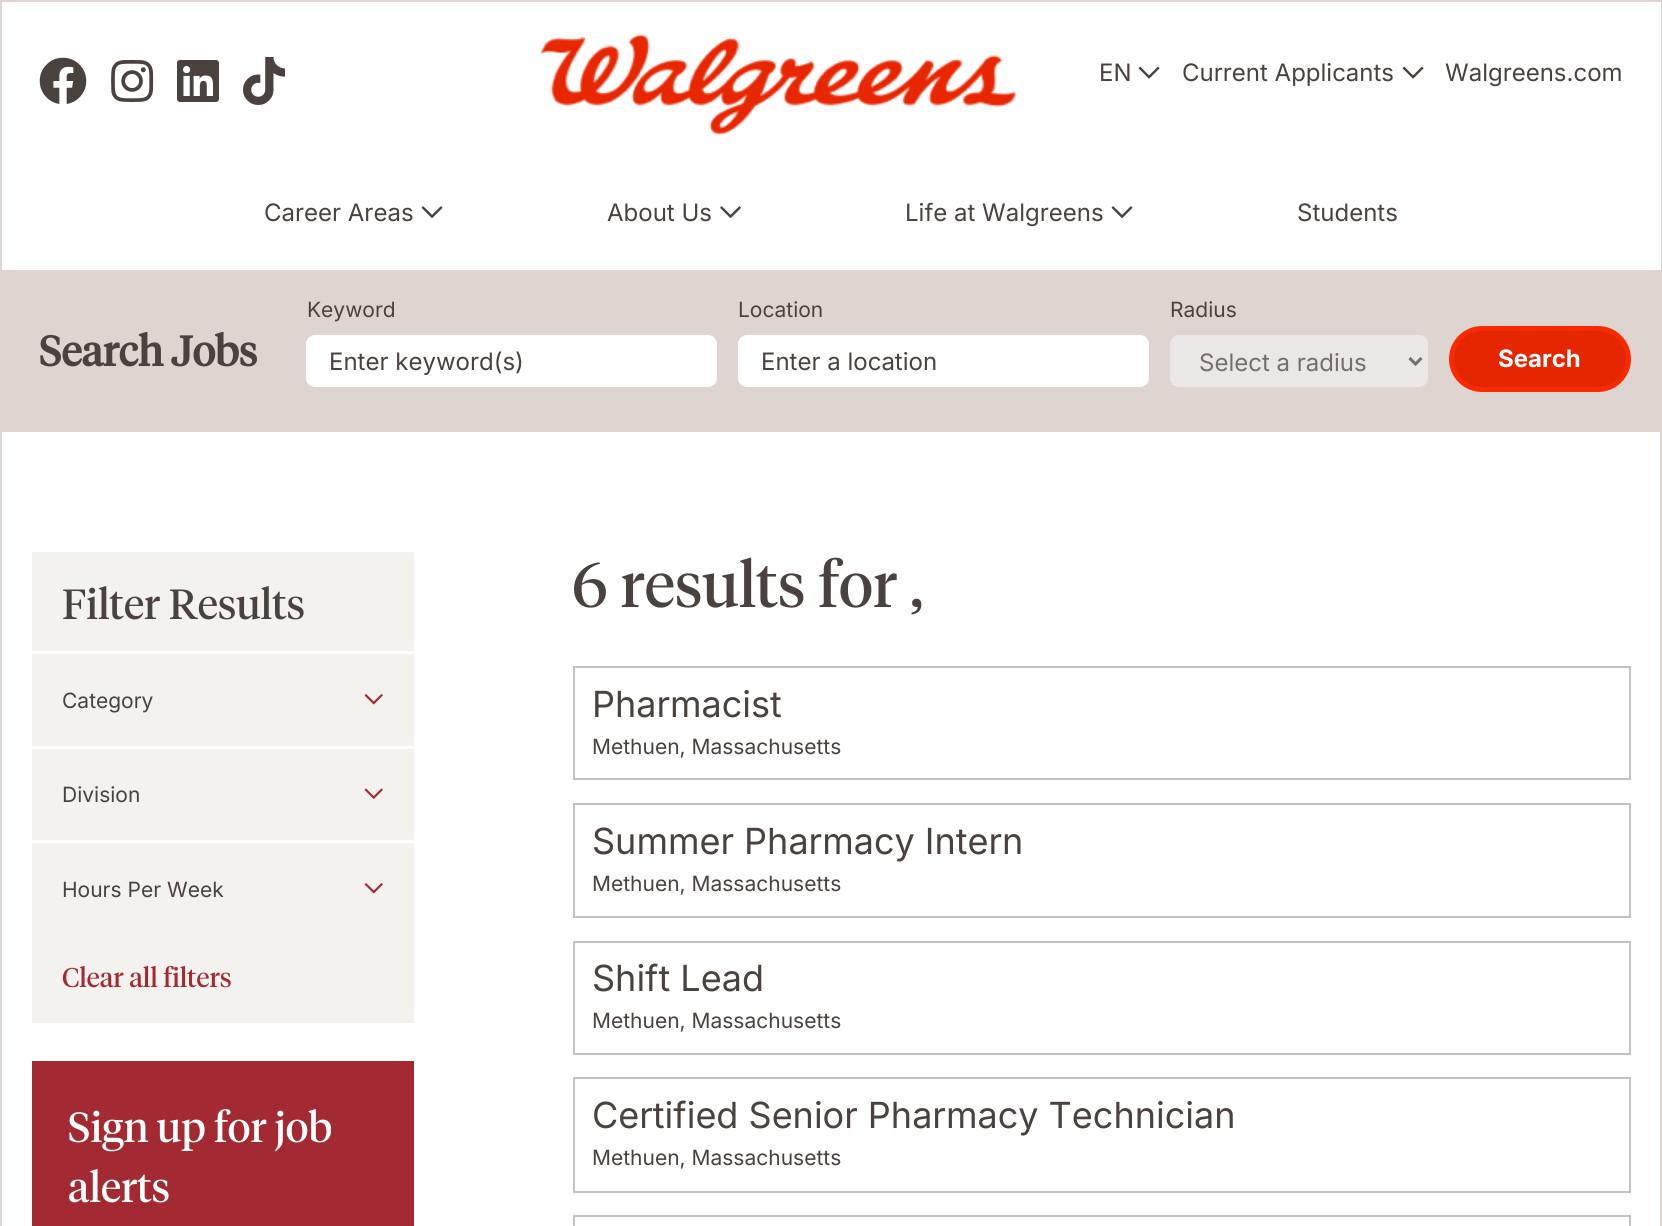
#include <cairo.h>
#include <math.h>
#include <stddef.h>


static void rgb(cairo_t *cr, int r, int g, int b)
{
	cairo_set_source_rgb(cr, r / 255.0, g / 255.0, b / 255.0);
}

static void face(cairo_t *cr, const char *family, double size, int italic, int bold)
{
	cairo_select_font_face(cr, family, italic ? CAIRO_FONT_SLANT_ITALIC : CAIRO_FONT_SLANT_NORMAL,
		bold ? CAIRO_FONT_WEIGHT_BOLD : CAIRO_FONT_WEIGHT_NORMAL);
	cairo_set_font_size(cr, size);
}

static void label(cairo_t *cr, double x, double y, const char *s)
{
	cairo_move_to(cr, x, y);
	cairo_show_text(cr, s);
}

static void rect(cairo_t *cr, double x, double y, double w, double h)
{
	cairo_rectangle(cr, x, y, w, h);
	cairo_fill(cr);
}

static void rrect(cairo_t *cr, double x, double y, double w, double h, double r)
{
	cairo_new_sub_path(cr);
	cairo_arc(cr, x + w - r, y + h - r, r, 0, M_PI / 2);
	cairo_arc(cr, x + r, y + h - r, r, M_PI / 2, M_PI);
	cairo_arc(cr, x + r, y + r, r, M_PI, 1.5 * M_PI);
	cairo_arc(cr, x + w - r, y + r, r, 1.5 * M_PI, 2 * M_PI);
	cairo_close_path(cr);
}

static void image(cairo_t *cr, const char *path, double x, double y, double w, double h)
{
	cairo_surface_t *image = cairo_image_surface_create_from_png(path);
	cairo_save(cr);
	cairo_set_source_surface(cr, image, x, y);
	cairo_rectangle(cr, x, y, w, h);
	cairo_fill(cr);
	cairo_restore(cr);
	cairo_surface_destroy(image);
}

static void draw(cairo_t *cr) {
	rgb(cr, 255, 255, 255);
	cairo_paint(cr);
	cairo_rectangle(cr, 1, 1, 1660, 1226);
	rgb(cr, 222, 213, 208);
	cairo_stroke(cr);
	rgb(cr, 255, 255, 255);
	rect(cr, 1660, 2, 1, 268);
	image(cr, "image0.png", 540, 34, 476, 102);
	image(cr, "image1.png", 39, 57, 48, 47);
	image(cr, "image2.png", 111, 60, 43, 42);
	image(cr, "image3.png", 177, 60, 42, 42);
	image(cr, "image4.png", 243, 57, 42, 48);
	face(cr, "Inter", 24, 0, 0);
	rgb(cr, 74, 66, 63);
	label(cr, 1099, 81, "EN");
	image(cr, "image5.png", 1138, 66, 22, 13);
	label(cr, 1182, 81, "Current Applicants");
	image(cr, "image5.png", 1402, 66, 22, 13);
	label(cr, 1445, 81, "Walgreens.com");
	label(cr, 264, 221, "Career Areas");
	image(cr, "image6.png", 421, 206, 22, 13);
	label(cr, 607, 221, "About Us");
	image(cr, "image7.png", 720, 206, 21, 13);
	label(cr, 905, 221, "Life at Walgreens");
	image(cr, "image6.png", 1111, 206, 22, 13);
	label(cr, 1297, 221, "Students");
	rgb(cr, 222, 213, 208);
	rect(cr, 2, 270, 1658, 162);
	face(cr, "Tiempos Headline", 42, 0, 1);
	rgb(cr, 74, 66, 63);
	label(cr, 39, 366, "Search Jobs");
	face(cr, "Inter", 21, 0, 0);
	label(cr, 307, 317, "Keyword");
	rgb(cr, 255, 255, 255);
	rrect(cr, 306, 335, 411, 52, 9);
	cairo_fill(cr);
	face(cr, "Inter", 24, 0, 0);
	rgb(cr, 74, 66, 63);
	label(cr, 329, 370, "Enter keyword(s)");
	face(cr, "Inter", 21, 0, 0);
	label(cr, 738, 317, "Location");
	rgb(cr, 255, 255, 255);
	rrect(cr, 738, 335, 411, 52, 9);
	cairo_fill(cr);
	face(cr, "Inter", 24, 0, 0);
	rgb(cr, 74, 66, 63);
	label(cr, 761, 370, "Enter a location");
	face(cr, "Inter", 21, 0, 0);
	label(cr, 1170, 317, "Radius");
	rgb(cr, 234, 231, 230);
	rrect(cr, 1170, 335, 258, 52, 9);
	cairo_fill(cr);
	cairo_new_path(cr);
	cairo_move_to(cr, 1409.5, 358);
	cairo_line_to(cr, 1415.5, 364);
	cairo_line_to(cr, 1421.5, 358);
	rgb(cr, 118, 110, 107);
	cairo_set_line_width(cr, 3);
	cairo_stroke(cr);
	face(cr, "Inter", 24, 0, 0);
	label(cr, 1199, 371, "Select a radius");
	rgb(cr, 230, 38, 0);
	rrect(cr, 1451.5, 328.5, 177, 61, 30.5);
	cairo_fill_preserve(cr);
	rgb(cr, 250, 42, 0);
	cairo_set_line_width(cr, 5);
	cairo_stroke(cr);
	face(cr, "Inter", 24, 0, 1);
	rgb(cr, 255, 255, 255);
	label(cr, 1498, 367, "Search");
	rgb(cr, 244, 242, 239);
	rect(cr, 32, 552, 382, 471);
	face(cr, "Tiempos Headline", 42, 0, 0);
	rgb(cr, 74, 66, 63);
	label(cr, 62, 619, "Filter Results");
	rgb(cr, 255, 255, 255);
	rect(cr, 32, 651, 382, 3);
	face(cr, "Inter", 21, 0, 0);
	rgb(cr, 74, 66, 63);
	label(cr, 62, 708, "Category");
	image(cr, "image8.png", 364, 694, 19, 11);
	rgb(cr, 255, 255, 255);
	rect(cr, 32, 746, 382, 3);
	rgb(cr, 74, 66, 63);
	label(cr, 62, 802, "Division");
	image(cr, "image9.png", 364, 788, 19, 11);
	rgb(cr, 255, 255, 255);
	rect(cr, 32, 840, 382, 3);
	rgb(cr, 74, 66, 63);
	label(cr, 62, 897, "Hours Per Week");
	image(cr, "image8.png", 364, 883, 19, 11);
	face(cr, "Tiempos Headline", 27, 0, 0);
	rgb(cr, 163, 42, 51);
	label(cr, 62, 987, "Clear all filters");
	rect(cr, 32, 1061, 382, 165);
	face(cr, "Tiempos Headline", 42, 0, 0);
	rgb(cr, 255, 255, 255);
	label(cr, 68, 1142, "Sign up for job");
	label(cr, 68, 1202, "alerts");
	face(cr, "Tiempos Headline", 63, 0, 0);
	rgb(cr, 74, 66, 63);
	label(cr, 572, 607, "6 results for ,");
	cairo_rectangle(cr, 574, 667, 1056, 112);
	rgb(cr, 194, 194, 194);
	cairo_set_line_width(cr, 2);
	cairo_stroke(cr);
	face(cr, "Inter", 36, 0, 0);
	rgb(cr, 74, 66, 63);
	label(cr, 592, 717, "Pharmacist");
	face(cr, "Inter", 21, 0, 0);
	label(cr, 592, 754, "Methuen, Massachusetts");
	cairo_rectangle(cr, 574, 804, 1056, 113);
	rgb(cr, 194, 194, 194);
	cairo_stroke(cr);
	face(cr, "Inter", 36, 0, 0);
	rgb(cr, 74, 66, 63);
	label(cr, 592, 854, "Summer Pharmacy Intern");
	face(cr, "Inter", 21, 0, 0);
	label(cr, 592, 891, "Methuen, Massachusetts");
	cairo_rectangle(cr, 574, 942, 1056, 112);
	rgb(cr, 194, 194, 194);
	cairo_stroke(cr);
	face(cr, "Inter", 36, 0, 0);
	rgb(cr, 74, 66, 63);
	label(cr, 592, 991, "Shift Lead");
	face(cr, "Inter", 21, 0, 0);
	label(cr, 592, 1028, "Methuen, Massachusetts");
	cairo_rectangle(cr, 574, 1078, 1056, 114);
	rgb(cr, 194, 194, 194);
	cairo_stroke(cr);
	face(cr, "Inter", 36, 0, 0);
	rgb(cr, 74, 66, 63);
	label(cr, 592, 1128, "Certified Senior Pharmacy Technician");
	face(cr, "Inter", 21, 0, 0);
	label(cr, 592, 1165, "Methuen, Massachusetts");
	cairo_rectangle(cr, 574, 1216, 1056, 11);
	rgb(cr, 194, 194, 194);
	cairo_stroke(cr);
}

int main(void) {
	cairo_surface_t *surface = cairo_image_surface_create(CAIRO_FORMAT_RGB24, 1662, 1226);
	cairo_t *cr = cairo_create(surface);
	cairo_font_options_t *options = cairo_font_options_create();
	cairo_font_options_set_hint_metrics(options, CAIRO_HINT_METRICS_OFF);
	cairo_font_options_set_hint_style(options, CAIRO_HINT_STYLE_NONE);
	cairo_set_font_options(cr, options);
	cairo_set_miter_limit(cr, 4);
	draw(cr);
	cairo_surface_write_to_png(surface, "render.png");
	cairo_font_options_destroy(options);
	cairo_destroy(cr);
	cairo_surface_destroy(surface);
	return 0;
}
